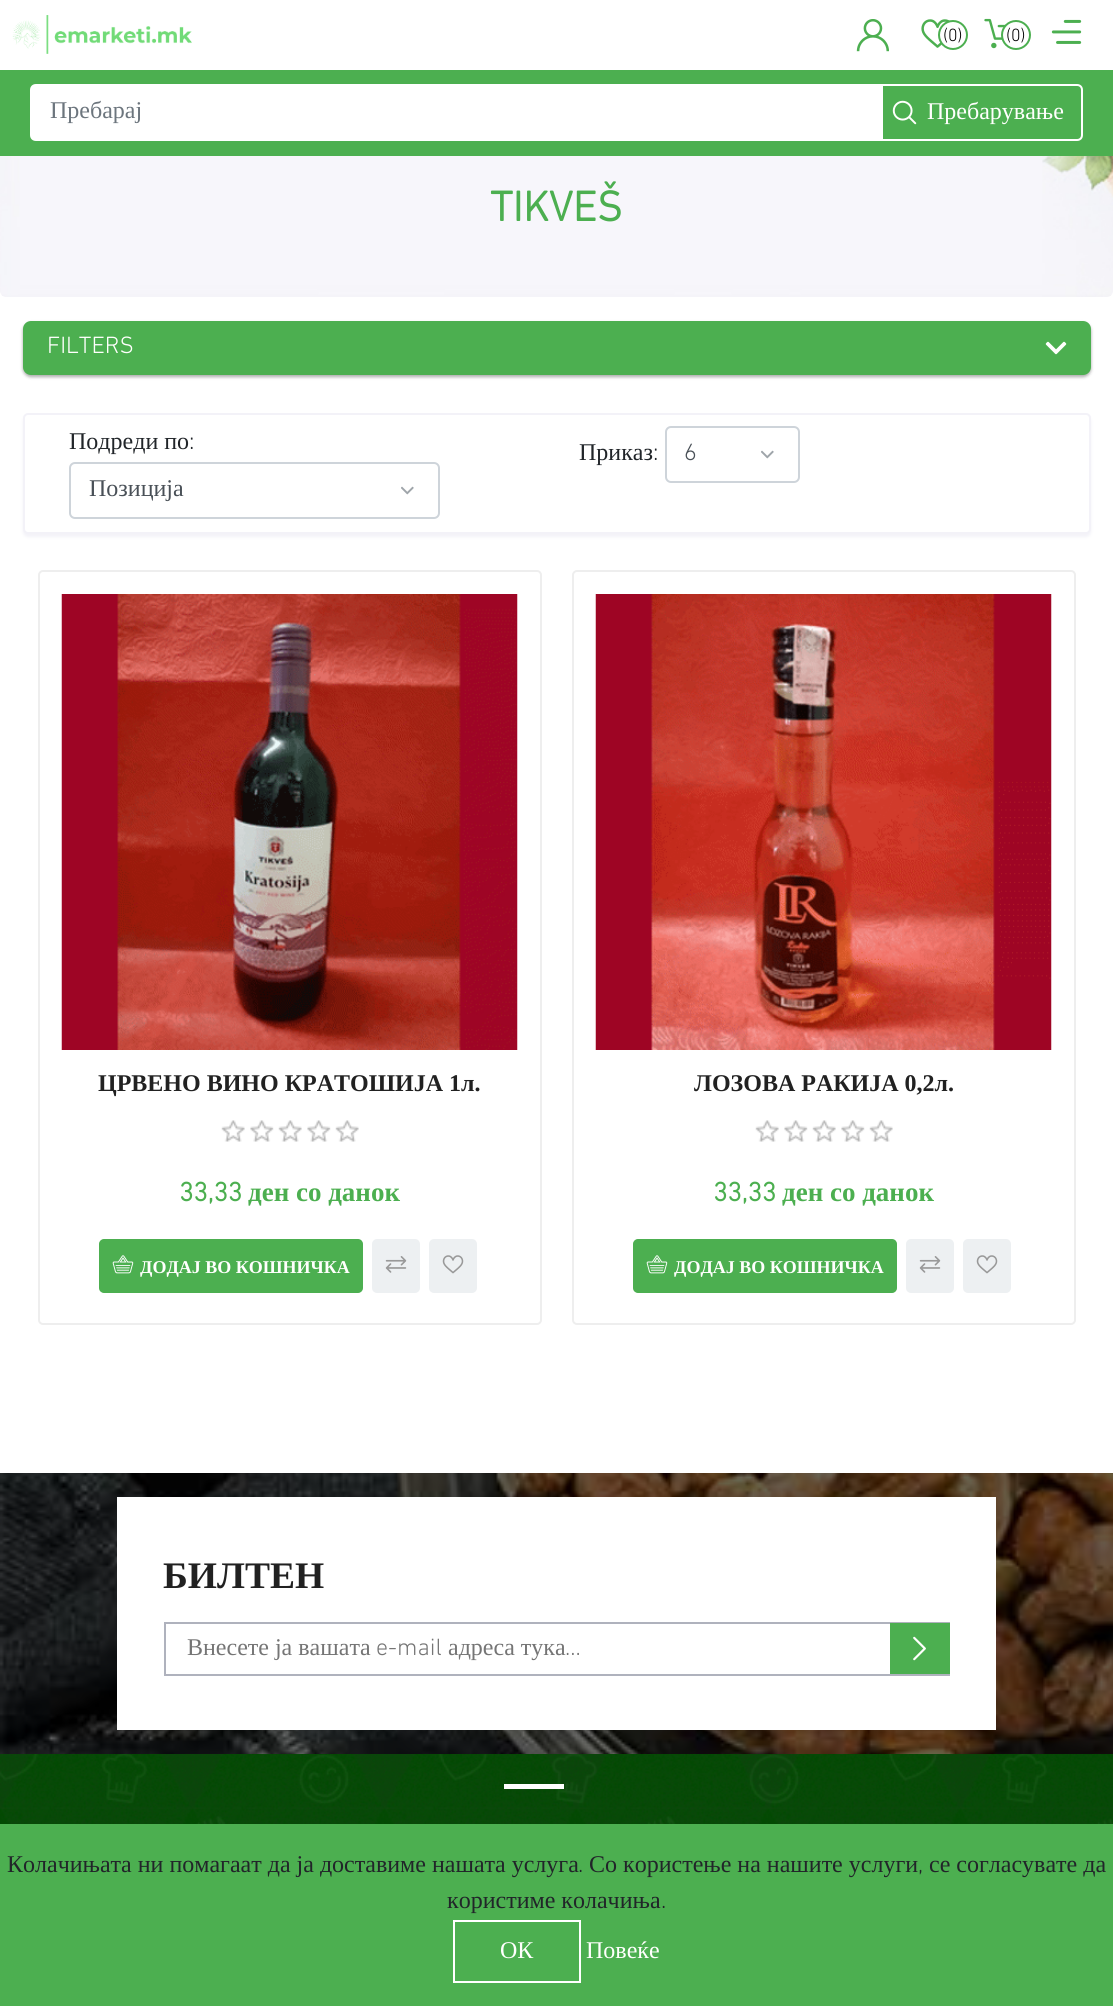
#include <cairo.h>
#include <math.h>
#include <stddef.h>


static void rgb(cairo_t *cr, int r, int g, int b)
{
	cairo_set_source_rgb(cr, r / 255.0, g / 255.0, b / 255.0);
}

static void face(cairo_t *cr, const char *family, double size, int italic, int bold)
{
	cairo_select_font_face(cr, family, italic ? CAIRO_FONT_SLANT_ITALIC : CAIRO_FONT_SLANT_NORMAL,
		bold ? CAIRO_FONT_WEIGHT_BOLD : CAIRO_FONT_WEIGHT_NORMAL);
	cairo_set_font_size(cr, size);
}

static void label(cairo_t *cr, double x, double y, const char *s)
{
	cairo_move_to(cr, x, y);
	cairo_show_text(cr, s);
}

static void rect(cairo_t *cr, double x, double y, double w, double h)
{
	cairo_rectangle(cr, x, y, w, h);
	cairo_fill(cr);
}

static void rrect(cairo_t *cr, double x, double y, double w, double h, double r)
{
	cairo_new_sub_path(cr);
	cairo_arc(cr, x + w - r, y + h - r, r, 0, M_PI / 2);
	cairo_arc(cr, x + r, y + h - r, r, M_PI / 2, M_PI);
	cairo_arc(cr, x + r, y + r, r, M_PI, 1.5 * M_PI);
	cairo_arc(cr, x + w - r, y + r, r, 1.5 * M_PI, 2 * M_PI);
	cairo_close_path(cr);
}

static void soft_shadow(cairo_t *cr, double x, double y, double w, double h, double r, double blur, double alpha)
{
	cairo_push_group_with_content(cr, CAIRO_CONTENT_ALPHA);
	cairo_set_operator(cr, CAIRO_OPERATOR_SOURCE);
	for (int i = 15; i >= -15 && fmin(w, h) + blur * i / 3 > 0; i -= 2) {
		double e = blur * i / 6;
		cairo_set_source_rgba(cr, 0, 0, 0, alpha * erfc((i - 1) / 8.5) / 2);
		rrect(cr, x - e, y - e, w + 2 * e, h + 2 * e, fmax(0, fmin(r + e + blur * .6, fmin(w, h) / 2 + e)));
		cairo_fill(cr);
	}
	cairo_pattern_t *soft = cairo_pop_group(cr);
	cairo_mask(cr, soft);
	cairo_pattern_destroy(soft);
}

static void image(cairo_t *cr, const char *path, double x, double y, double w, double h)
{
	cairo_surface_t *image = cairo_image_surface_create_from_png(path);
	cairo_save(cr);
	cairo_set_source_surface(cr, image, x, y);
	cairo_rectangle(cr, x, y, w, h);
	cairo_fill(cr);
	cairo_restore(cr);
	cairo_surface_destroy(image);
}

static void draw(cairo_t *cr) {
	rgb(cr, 255, 255, 255);
	cairo_paint(cr);
	image(cr, "image0.png", 12, 15, 180, 39);
	image(cr, "image1.png", 856, 19, 33, 33);
	image(cr, "image2.png", 921, 19, 29, 29);
	rgb(cr, 255, 255, 255);
	cairo_arc(cr, 953, 35, 14, 0, 2 * M_PI);
	cairo_fill_preserve(cr);
	rgb(cr, 76, 175, 80);
	cairo_stroke(cr);
	face(cr, "DIN Next Light", 18, 0, 0);
	rgb(cr, 0, 0, 0);
	label(cr, 943, 41, "(0)");
	image(cr, "image3.png", 984, 18, 27, 31);
	rgb(cr, 255, 255, 255);
	cairo_arc(cr, 1016, 35, 14, 0, 2 * M_PI);
	cairo_fill_preserve(cr);
	rgb(cr, 76, 175, 80);
	cairo_stroke(cr);
	rgb(cr, 0, 0, 0);
	label(cr, 1006, 41, "(0)");
	image(cr, "image4.png", 1051, 19, 31, 25);
	rgb(cr, 76, 175, 80);
	rect(cr, 0, 70, 1113, 86);
	rgb(cr, 255, 255, 255);
	cairo_new_path(cr);
	cairo_move_to(cr, 36, 85);
	cairo_line_to(cr, 881, 85);
	cairo_line_to(cr, 881, 140);
	cairo_line_to(cr, 36, 140);
	cairo_curve_to(cr, 33, 140, 31, 138, 31, 135);
	cairo_line_to(cr, 31, 90);
	cairo_curve_to(cr, 31, 87, 33, 85, 36, 85);
	cairo_close_path(cr);
	cairo_fill_preserve(cr);
	cairo_stroke(cr);
	face(cr, "Liberation Serif", 24, 0, 0);
	rgb(cr, 108, 117, 125);
	label(cr, 50, 118, "Пребарај");
	rgb(cr, 76, 175, 80);
	cairo_new_path(cr);
	cairo_move_to(cr, 882, 85);
	cairo_line_to(cr, 1077, 85);
	cairo_curve_to(cr, 1080, 85, 1082, 87, 1082, 90);
	cairo_line_to(cr, 1082, 135);
	cairo_curve_to(cr, 1082, 138, 1080, 140, 1077, 140);
	cairo_line_to(cr, 882, 140);
	cairo_close_path(cr);
	cairo_fill_preserve(cr);
	rgb(cr, 255, 255, 255);
	cairo_stroke(cr);
	image(cr, "image5.png", 892, 100, 25, 25);
	rgb(cr, 255, 255, 253);
	label(cr, 927, 119, "Пребарување");
	image(cr, "image6.png", 0, 156, 1113, 141);
	face(cr, "DIN Next", 43, 0, 1);
	rgb(cr, 76, 175, 80);
	label(cr, 490, 221, "TIKVEŠ");
	rgb(cr, 0, 0, 0);
	soft_shadow(cr, 23, 323, 1068, 54, 8, 1.5, 0.24);
	soft_shadow(cr, 23, 323, 1068, 54, 8, 2, 0.12);
	rgb(cr, 76, 175, 80);
	rrect(cr, 23, 321, 1068, 54, 8);
	cairo_fill(cr);
	face(cr, "DIN Next Light", 24, 0, 0);
	rgb(cr, 255, 255, 253);
	label(cr, 47, 353, "FILTERS");
	image(cr, "image7.png", 1045, 341, 22, 14);
	rgb(cr, 243, 242, 248);
	soft_shadow(cr, 23, 416, 1068, 121, 5, 1.5, 1);
	rgb(cr, 255, 255, 255);
	rrect(cr, 24, 414, 1066, 119, 4);
	cairo_fill_preserve(cr);
	rgb(cr, 243, 242, 248);
	cairo_stroke(cr);
	face(cr, "Liberation Serif", 24, 0, 0);
	rgb(cr, 33, 37, 41);
	label(cr, 69, 449, "Подреди по");
	face(cr, "DIN Next Light", 24, 0, 0);
	label(cr, 189, 449, ":");
	image(cr, "image8.png", 401, 486, 13, 9);
	rrect(cr, 70, 463, 369, 55, 5);
	rgb(cr, 206, 212, 218);
	cairo_stroke(cr);
	face(cr, "Liberation Serif", 24, 0, 0);
	rgb(cr, 73, 80, 87);
	label(cr, 89, 496, "Позиција");
	rgb(cr, 33, 37, 41);
	label(cr, 579, 460, "Приказ");
	face(cr, "DIN Next Light", 24, 0, 0);
	label(cr, 653, 460, ":");
	image(cr, "image8.png", 761, 450, 13, 9);
	rrect(cr, 666, 427, 133, 55, 5);
	rgb(cr, 206, 212, 218);
	cairo_stroke(cr);
	rgb(cr, 73, 80, 87);
	label(cr, 684, 460, "6");
	rrect(cr, 39, 571, 502, 753, 4);
	rgb(cr, 238, 238, 238);
	cairo_stroke(cr);
	image(cr, "image9.png", 61, 594, 457, 456);
	face(cr, "Liberation Serif", 24, 0, 1);
	rgb(cr, 33, 33, 33);
	label(cr, 98, 1091, "ЦРВЕНО ВИНО КРАТОШИЈА 1л.");
	image(cr, "image10.png", 221, 1120, 138, 22);
	face(cr, "DIN Next", 27, 0, 1);
	rgb(cr, 76, 175, 80);
	label(cr, 179, 1201, "33,33");
	face(cr, "Liberation Serif", 27, 0, 1);
	label(cr, 248, 1201, "ден со данок");
	rrect(cr, 100, 1240, 262, 52, 4);
	cairo_fill_preserve(cr);
	cairo_stroke(cr);
	image(cr, "image11.png", 112, 1255, 22, 19);
	face(cr, "Liberation Serif", 18, 0, 1);
	rgb(cr, 255, 255, 253);
	label(cr, 140, 1273, "ДОДАЈ ВО КОШНИЧКА");
	rgb(cr, 237, 240, 242);
	rrect(cr, 373, 1240, 46, 52, 4);
	cairo_fill_preserve(cr);
	cairo_stroke(cr);
	image(cr, "image12.png", 385, 1256, 22, 17);
	rrect(cr, 430, 1240, 46, 52, 4);
	cairo_fill_preserve(cr);
	cairo_stroke(cr);
	image(cr, "image13.png", 442, 1255, 22, 19);
	rrect(cr, 573, 571, 502, 753, 4);
	rgb(cr, 238, 238, 238);
	cairo_stroke(cr);
	image(cr, "image14.png", 595, 594, 457, 456);
	face(cr, "Liberation Serif", 24, 0, 1);
	rgb(cr, 33, 33, 33);
	label(cr, 694, 1091, "ЛОЗОВА РАКИЈА 0,2л.");
	image(cr, "image15.png", 755, 1120, 138, 22);
	face(cr, "DIN Next", 27, 0, 1);
	rgb(cr, 76, 175, 80);
	label(cr, 713, 1201, "33,33");
	face(cr, "Liberation Serif", 27, 0, 1);
	label(cr, 782, 1201, "ден со данок");
	rrect(cr, 634, 1240, 262, 52, 4);
	cairo_fill_preserve(cr);
	cairo_stroke(cr);
	image(cr, "image11.png", 646, 1255, 22, 19);
	face(cr, "Liberation Serif", 18, 0, 1);
	rgb(cr, 255, 255, 253);
	label(cr, 674, 1273, "ДОДАЈ ВО КОШНИЧКА");
	rgb(cr, 237, 240, 242);
	rrect(cr, 907, 1240, 46, 52, 4);
	cairo_fill_preserve(cr);
	cairo_stroke(cr);
	image(cr, "image12.png", 919, 1256, 22, 17);
	rrect(cr, 964, 1240, 46, 52, 4);
	cairo_fill_preserve(cr);
	cairo_stroke(cr);
	image(cr, "image13.png", 976, 1255, 22, 19);
	image(cr, "image16.png", 0, 1754, 1113, 70);
	image(cr, "image17.png", 0, 1473, 1113, 281);
	rgb(cr, 255, 255, 255);
	rect(cr, 117, 1497, 879, 233);
	face(cr, "Liberation Serif", 37.5, 0, 1);
	rgb(cr, 33, 33, 33);
	label(cr, 163, 1588, "БИЛТЕН");
	cairo_rectangle(cr, 165, 1623, 784, 52);
	rgb(cr, 175, 178, 189);
	cairo_stroke(cr);
	face(cr, "Liberation Serif", 24, 0, 0);
	rgb(cr, 117, 117, 117);
	label(cr, 187, 1655, "Внесете ја вашата");
	face(cr, "DIN Next Light", 24, 0, 0);
	label(cr, 376, 1655, "e-mail");
	face(cr, "Liberation Serif", 24, 0, 0);
	label(cr, 448, 1655, "адреса тука");
	face(cr, "DIN Next Light", 24, 0, 0);
	label(cr, 565, 1655, "...");
	rgb(cr, 76, 175, 80);
	rect(cr, 890, 1623, 60, 51);
	image(cr, "image18.png", 913, 1636, 13, 25);
	rgb(cr, 255, 255, 255);
	rect(cr, 504, 1784, 60, 5);
	rgb(cr, 76, 175, 80);
	rect(cr, 0, 1824, 1113, 182);
	face(cr, "Liberation Serif", 24, 0, 0);
	rgb(cr, 33, 37, 41);
	label(cr, 7, 1872, "Колачињата ни помагаат да ја доставиме нашата услуга");
	face(cr, "DIN Next Light", 24, 0, 0);
	label(cr, 578, 1872, ".");
	face(cr, "Liberation Serif", 24, 0, 0);
	label(cr, 589, 1872, "Со користење на нашите услуги");
	face(cr, "DIN Next Light", 24, 0, 0);
	label(cr, 918, 1872, ",");
	face(cr, "Liberation Serif", 24, 0, 0);
	label(cr, 929, 1872, "се согласувате да");
	label(cr, 447, 1908, "користиме колачиња");
	face(cr, "DIN Next Light", 24, 0, 0);
	label(cr, 661, 1908, ".");
	cairo_rectangle(cr, 454, 1921, 126, 61);
	rgb(cr, 255, 255, 255);
	cairo_stroke(cr);
	face(cr, "Liberation Serif", 24, 0, 0);
	rgb(cr, 255, 255, 253);
	label(cr, 500, 1958, "ОК");
	label(cr, 586, 1958, "Повеќе");
}

int main(void) {
	cairo_surface_t *surface = cairo_image_surface_create(CAIRO_FORMAT_RGB24, 1113, 2006);
	cairo_t *cr = cairo_create(surface);
	cairo_font_options_t *options = cairo_font_options_create();
	cairo_font_options_set_hint_metrics(options, CAIRO_HINT_METRICS_OFF);
	cairo_font_options_set_hint_style(options, CAIRO_HINT_STYLE_NONE);
	cairo_set_font_options(cr, options);
	cairo_set_miter_limit(cr, 4);
	draw(cr);
	cairo_surface_write_to_png(surface, "render.png");
	cairo_font_options_destroy(options);
	cairo_destroy(cr);
	cairo_surface_destroy(surface);
	return 0;
}
